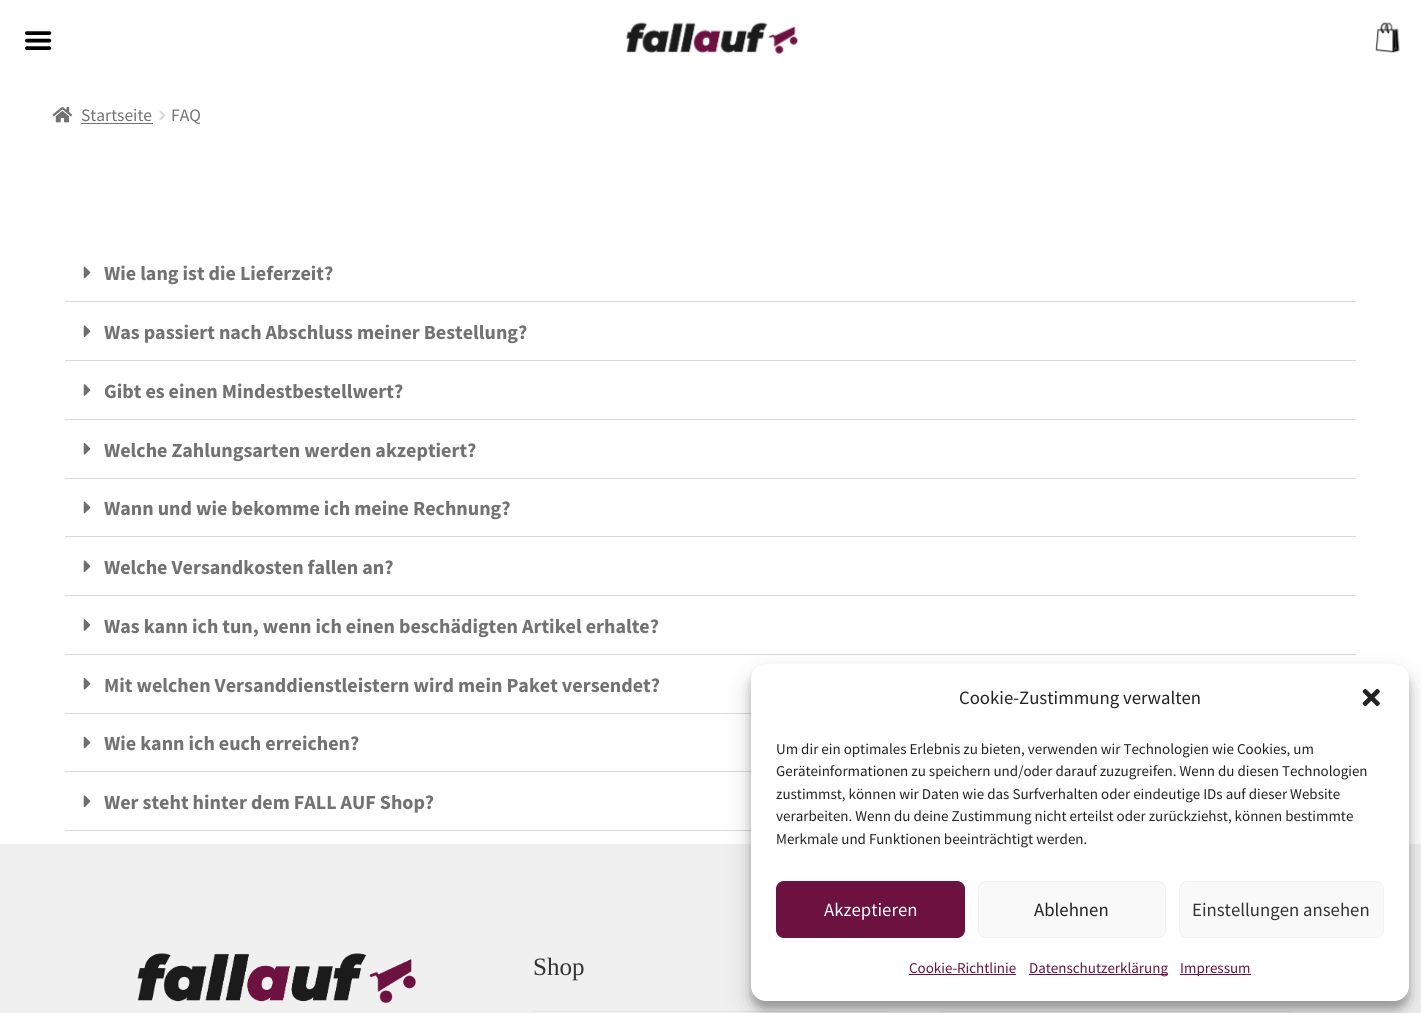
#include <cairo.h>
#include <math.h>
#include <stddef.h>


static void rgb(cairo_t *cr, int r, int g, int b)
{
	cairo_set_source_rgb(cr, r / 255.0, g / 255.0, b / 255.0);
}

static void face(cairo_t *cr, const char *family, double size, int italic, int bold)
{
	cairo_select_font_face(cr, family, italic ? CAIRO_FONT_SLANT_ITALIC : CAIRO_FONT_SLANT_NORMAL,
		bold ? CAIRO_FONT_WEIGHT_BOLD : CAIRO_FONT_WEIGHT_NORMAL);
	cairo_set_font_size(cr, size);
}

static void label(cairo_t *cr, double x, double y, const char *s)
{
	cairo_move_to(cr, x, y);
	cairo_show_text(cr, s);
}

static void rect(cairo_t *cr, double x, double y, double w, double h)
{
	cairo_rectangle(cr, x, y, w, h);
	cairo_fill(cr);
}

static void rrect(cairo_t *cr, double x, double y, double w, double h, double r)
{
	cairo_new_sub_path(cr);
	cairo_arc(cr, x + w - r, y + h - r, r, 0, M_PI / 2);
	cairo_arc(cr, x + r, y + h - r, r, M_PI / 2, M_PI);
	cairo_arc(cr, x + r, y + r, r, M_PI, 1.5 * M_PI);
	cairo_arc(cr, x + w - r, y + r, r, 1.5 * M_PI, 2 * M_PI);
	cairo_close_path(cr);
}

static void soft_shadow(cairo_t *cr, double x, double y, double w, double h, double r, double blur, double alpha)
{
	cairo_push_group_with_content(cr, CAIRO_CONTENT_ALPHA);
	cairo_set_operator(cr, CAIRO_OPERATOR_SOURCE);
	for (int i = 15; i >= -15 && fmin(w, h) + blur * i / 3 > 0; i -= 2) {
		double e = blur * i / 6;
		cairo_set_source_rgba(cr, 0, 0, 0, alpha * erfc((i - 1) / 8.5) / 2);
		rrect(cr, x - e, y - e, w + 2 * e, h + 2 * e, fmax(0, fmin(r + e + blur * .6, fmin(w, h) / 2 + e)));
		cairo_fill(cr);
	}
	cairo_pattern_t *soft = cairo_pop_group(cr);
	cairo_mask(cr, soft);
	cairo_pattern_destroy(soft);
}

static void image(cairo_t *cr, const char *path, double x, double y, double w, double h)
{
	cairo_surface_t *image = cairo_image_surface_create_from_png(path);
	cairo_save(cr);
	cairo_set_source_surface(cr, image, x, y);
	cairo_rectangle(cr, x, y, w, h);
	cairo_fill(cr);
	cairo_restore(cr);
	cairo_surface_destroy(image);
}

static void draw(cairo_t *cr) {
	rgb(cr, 255, 255, 255);
	cairo_paint(cr);
	image(cr, "image0.png", 25, 31, 27, 19);
	image(cr, "image1.png", 626, 22, 173, 32);
	image(cr, "image2.png", 1375, 22, 25, 31);
	image(cr, "image3.png", 52, 107, 21, 16);
	face(cr, "Source Sans Pro", 17.5, 0, 0);
	rgb(cr, 114, 114, 114);
	label(cr, 81, 121, "Startseite");
	rect(cr, 81, 123, 72, 1);
	image(cr, "image4.png", 159, 110, 7, 10);
	label(cr, 171, 121, "FAQ");
	rgb(cr, 213, 216, 220);
	rect(cr, 65, 301, 1291, 1);
	image(cr, "image5.png", 83, 266, 8, 13);
	face(cr, "Source Sans Pro", 20, 0, 1);
	rgb(cr, 114, 114, 114);
	label(cr, 104, 280, "Wie lang ist die Lieferzeit?");
	rgb(cr, 213, 216, 220);
	rect(cr, 65, 360, 1291, 1);
	image(cr, "image6.png", 83, 325, 8, 12);
	rgb(cr, 114, 114, 114);
	label(cr, 104, 339, "Was passiert nach Abschluss meiner Bestellung?");
	rgb(cr, 213, 216, 220);
	rect(cr, 65, 419, 1291, 1);
	image(cr, "image7.png", 83, 384, 8, 12);
	rgb(cr, 114, 114, 114);
	label(cr, 104, 398, "Gibt es einen Mindestbestellwert?");
	rgb(cr, 213, 216, 220);
	rect(cr, 65, 478, 1291, 1);
	image(cr, "image8.png", 83, 443, 8, 12);
	rgb(cr, 114, 114, 114);
	label(cr, 104, 457, "Welche Zahlungsarten werden akzeptiert?");
	rgb(cr, 213, 216, 220);
	rect(cr, 65, 536, 1291, 1);
	image(cr, "image5.png", 83, 501, 8, 13);
	rgb(cr, 114, 114, 114);
	label(cr, 104, 515, "Wann und wie bekomme ich meine Rechnung?");
	rgb(cr, 213, 216, 220);
	rect(cr, 65, 595, 1291, 1);
	image(cr, "image6.png", 83, 560, 8, 12);
	rgb(cr, 114, 114, 114);
	label(cr, 104, 574, "Welche Versandkosten fallen an?");
	rgb(cr, 213, 216, 220);
	rect(cr, 65, 654, 1291, 1);
	image(cr, "image7.png", 83, 619, 8, 12);
	rgb(cr, 114, 114, 114);
	label(cr, 104, 633, "Was kann ich tun, wenn ich einen beschädigten Artikel erhalte?");
	rgb(cr, 213, 216, 220);
	rect(cr, 65, 713, 686, 1);
	image(cr, "image8.png", 83, 678, 8, 12);
	rgb(cr, 114, 114, 114);
	label(cr, 104, 692, "Mit welchen Versanddienstleistern wird mein Paket versendet?");
	rgb(cr, 213, 216, 220);
	rect(cr, 65, 771, 686, 1);
	image(cr, "image5.png", 83, 736, 8, 13);
	rgb(cr, 114, 114, 114);
	label(cr, 104, 750, "Wie kann ich euch erreichen?");
	rgb(cr, 213, 216, 220);
	rect(cr, 65, 830, 686, 1);
	image(cr, "image6.png", 83, 795, 8, 12);
	rgb(cr, 114, 114, 114);
	label(cr, 104, 809, "Wer steht hinter dem FALL AUF Shop?");
	rgb(cr, 240, 240, 240);
	rect(cr, 0, 844, 1421, 169);
	image(cr, "image9.png", 137, 953, 279, 50);
	rgb(cr, 228, 228, 228);
	rect(cr, 534, 1011, 354, 1);
	face(cr, "Liberation Serif", 25, 0, 0);
	rgb(cr, 51, 51, 51);
	label(cr, 533, 975, "Shop");
	rgb(cr, 228, 228, 228);
	rect(cr, 939, 1011, 354, 1);
	rgb(cr, 0, 0, 0);
	soft_shadow(cr, 751, 671, 658, 338, 15, 4, 0.23);
	soft_shadow(cr, 751, 676, 658, 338, 15, 12.5, 0.19);
	rgb(cr, 255, 255, 255);
	rrect(cr, 751, 664, 658, 337, 15);
	cairo_fill(cr);
	face(cr, "Source Sans Pro", 18.75, 0, 0);
	rgb(cr, 34, 34, 34);
	label(cr, 959, 704, "Cookie-Zustimmung verwalten");
	image(cr, "image10.png", 1362, 688, 18, 19);
	face(cr, "Source Sans Pro", 15, 0, 0);
	label(cr, 776, 754, "Um dir ein optimales Erlebnis zu bieten, verwenden wir Technologien wie Cookies, um");
	label(cr, 776, 776, "Geräteinformationen zu speichern und/oder darauf zuzugreifen. Wenn du diesen Technologien");
	label(cr, 776, 799, "zustimmst, können wir Daten wie das Surfverhalten oder eindeutige IDs auf dieser Website");
	label(cr, 776, 821, "verarbeiten. Wenn du deine Zustimmung nicht erteilst oder zurückziehst, können bestimmte");
	label(cr, 776, 844, "Merkmale und Funktionen beeinträchtigt werden.");
	rgb(cr, 109, 17, 65);
	rrect(cr, 776.5, 881.5, 188, 56, 7.5);
	cairo_fill_preserve(cr);
	cairo_set_line_width(cr, 1);
	cairo_stroke(cr);
	face(cr, "Source Sans Pro", 18.75, 0, 0);
	rgb(cr, 255, 255, 255);
	label(cr, 824, 916, "Akzeptieren");
	rgb(cr, 249, 249, 249);
	rrect(cr, 978.5, 881.5, 187, 56, 7.5);
	cairo_fill_preserve(cr);
	rgb(cr, 242, 242, 242);
	cairo_stroke(cr);
	rgb(cr, 34, 34, 34);
	label(cr, 1034, 916, "Ablehnen");
	rgb(cr, 249, 249, 249);
	rrect(cr, 1179.5, 881.5, 204, 56, 7.5);
	cairo_fill_preserve(cr);
	rgb(cr, 242, 242, 242);
	cairo_stroke(cr);
	rgb(cr, 51, 51, 51);
	label(cr, 1192, 916, "Einstellungen ansehen");
	face(cr, "Source Sans Pro", 15, 0, 0);
	rgb(cr, 109, 17, 65);
	label(cr, 909, 973, "Cookie-Richtlinie");
	rect(cr, 909, 974, 107, 1);
	rect(cr, 1029, 974, 139, 1);
	label(cr, 1029, 973, "Datenschutzerklärung");
	rect(cr, 1180, 974, 71, 1);
	label(cr, 1180, 973, "Impressum");
}

int main(void) {
	cairo_surface_t *surface = cairo_image_surface_create(CAIRO_FORMAT_RGB24, 1421, 1013);
	cairo_t *cr = cairo_create(surface);
	cairo_font_options_t *options = cairo_font_options_create();
	cairo_font_options_set_hint_metrics(options, CAIRO_HINT_METRICS_OFF);
	cairo_font_options_set_hint_style(options, CAIRO_HINT_STYLE_NONE);
	cairo_set_font_options(cr, options);
	cairo_set_miter_limit(cr, 4);
	draw(cr);
	cairo_surface_write_to_png(surface, "render.png");
	cairo_font_options_destroy(options);
	cairo_destroy(cr);
	cairo_surface_destroy(surface);
	return 0;
}
